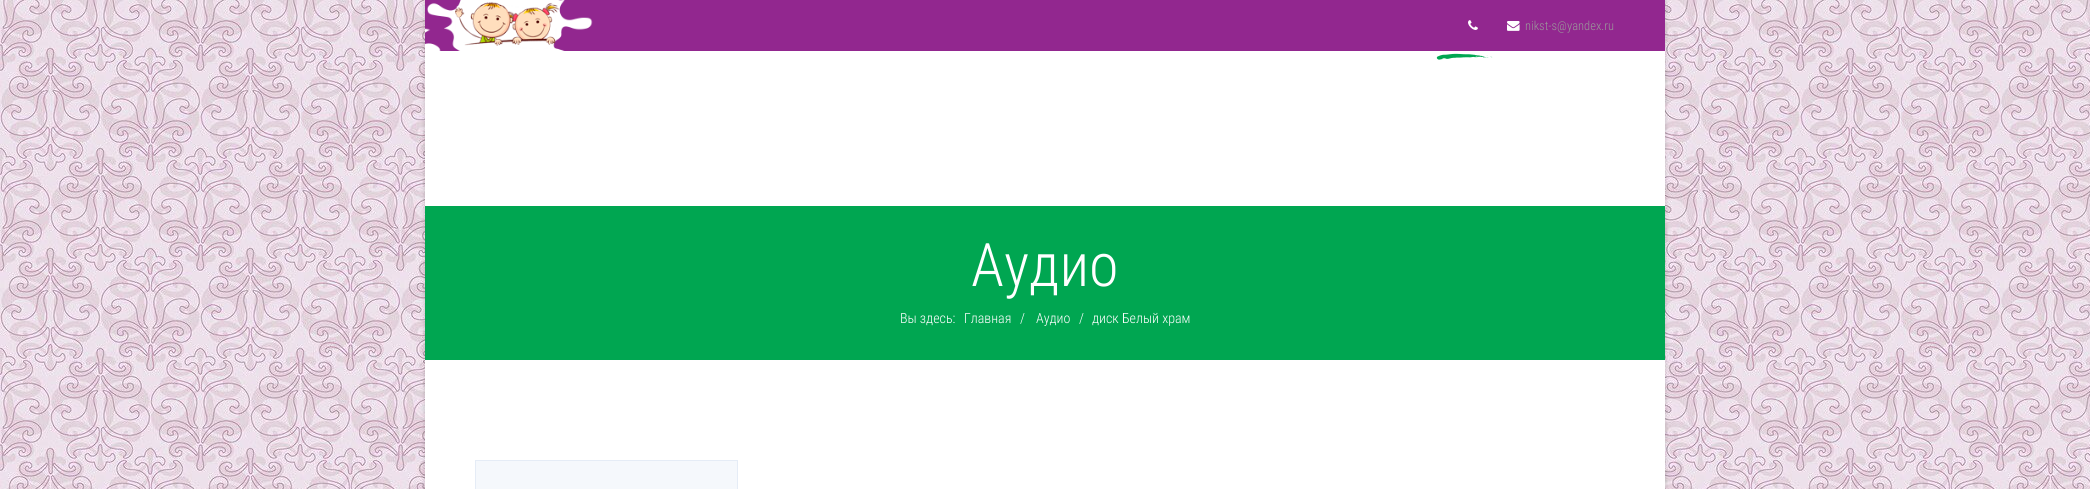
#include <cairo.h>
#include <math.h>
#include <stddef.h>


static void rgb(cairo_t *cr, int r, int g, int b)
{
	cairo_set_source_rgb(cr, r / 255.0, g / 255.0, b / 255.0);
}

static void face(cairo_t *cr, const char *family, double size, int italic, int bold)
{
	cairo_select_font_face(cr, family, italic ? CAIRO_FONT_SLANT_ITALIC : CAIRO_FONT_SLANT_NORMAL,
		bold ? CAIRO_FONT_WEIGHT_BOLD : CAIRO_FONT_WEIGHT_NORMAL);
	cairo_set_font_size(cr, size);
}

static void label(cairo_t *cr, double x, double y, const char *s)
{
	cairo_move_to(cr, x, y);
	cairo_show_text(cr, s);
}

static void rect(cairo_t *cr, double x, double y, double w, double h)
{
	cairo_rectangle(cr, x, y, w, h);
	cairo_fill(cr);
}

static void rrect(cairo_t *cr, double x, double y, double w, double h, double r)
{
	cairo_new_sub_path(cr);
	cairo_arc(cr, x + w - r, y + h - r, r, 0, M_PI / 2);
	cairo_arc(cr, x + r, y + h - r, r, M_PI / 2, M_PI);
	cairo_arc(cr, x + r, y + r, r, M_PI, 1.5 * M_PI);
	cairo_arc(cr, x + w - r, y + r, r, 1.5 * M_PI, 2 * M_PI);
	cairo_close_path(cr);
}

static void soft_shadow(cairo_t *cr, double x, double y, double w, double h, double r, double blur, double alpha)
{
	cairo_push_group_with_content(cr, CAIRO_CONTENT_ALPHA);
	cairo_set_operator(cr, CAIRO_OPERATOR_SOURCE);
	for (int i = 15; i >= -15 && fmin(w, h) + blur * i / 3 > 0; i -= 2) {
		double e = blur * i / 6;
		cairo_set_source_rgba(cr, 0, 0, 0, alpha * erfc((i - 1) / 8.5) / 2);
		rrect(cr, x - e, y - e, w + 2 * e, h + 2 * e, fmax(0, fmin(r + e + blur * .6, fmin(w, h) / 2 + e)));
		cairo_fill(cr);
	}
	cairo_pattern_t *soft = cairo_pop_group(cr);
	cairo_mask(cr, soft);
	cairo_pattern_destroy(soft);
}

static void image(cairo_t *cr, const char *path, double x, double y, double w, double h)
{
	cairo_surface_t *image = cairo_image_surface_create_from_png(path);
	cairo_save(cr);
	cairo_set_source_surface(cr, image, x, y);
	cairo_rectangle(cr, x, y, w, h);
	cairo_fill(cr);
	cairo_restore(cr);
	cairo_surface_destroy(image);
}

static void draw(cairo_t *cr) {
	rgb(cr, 255, 255, 255);
	cairo_paint(cr);
	image(cr, "image0.png", 0, 0, 2090, 489);
	rgb(cr, 0, 0, 0);
	soft_shadow(cr, 425, 0, 1240, 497, 0, 2.5, 0.2);
	rgb(cr, 255, 255, 255);
	rect(cr, 425, 51, 1240, 438);
	rgb(cr, 146, 39, 143);
	rect(cr, 425, 0, 1240, 51);
	image(cr, "image1.png", 425, 0, 168, 51);
	image(cr, "image2.png", 1436, 53, 57, 7);
	image(cr, "image3.png", 1468, 20, 10, 10);
	image(cr, "image4.png", 1507, 21, 13, 10);
	face(cr, "Roboto Condensed Light", 12.5, 0, 0);
	rgb(cr, 154, 154, 154);
	label(cr, 1525, 30, "nikst-s@yandex.ru");
	rgb(cr, 0, 166, 81);
	rect(cr, 425, 206, 1240, 154);
	face(cr, "Roboto Condensed Light", 60, 0, 0);
	rgb(cr, 255, 255, 255);
	label(cr, 971, 286, "Аудио");
	face(cr, "Roboto Condensed Light", 14, 0, 0);
	label(cr, 900, 323, "Вы здесь:");
	label(cr, 964, 323, "Главная");
	label(cr, 1020, 323, "/");
	label(cr, 1036, 323, "Аудио");
	label(cr, 1079, 323, "/");
	label(cr, 1092, 323, "диск Белый храм");
	rgb(cr, 245, 248, 252);
	cairo_rectangle(cr, 475.5, 460.5, 262, 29);
	cairo_fill_preserve(cr);
	rgb(cr, 229, 236, 246);
	cairo_set_line_width(cr, 1);
	cairo_stroke(cr);
}

int main(void) {
	cairo_surface_t *surface = cairo_image_surface_create(CAIRO_FORMAT_RGB24, 2090, 489);
	cairo_t *cr = cairo_create(surface);
	cairo_font_options_t *options = cairo_font_options_create();
	cairo_font_options_set_hint_metrics(options, CAIRO_HINT_METRICS_OFF);
	cairo_font_options_set_hint_style(options, CAIRO_HINT_STYLE_NONE);
	cairo_set_font_options(cr, options);
	cairo_set_miter_limit(cr, 4);
	draw(cr);
	cairo_surface_write_to_png(surface, "render.png");
	cairo_font_options_destroy(options);
	cairo_destroy(cr);
	cairo_surface_destroy(surface);
	return 0;
}
